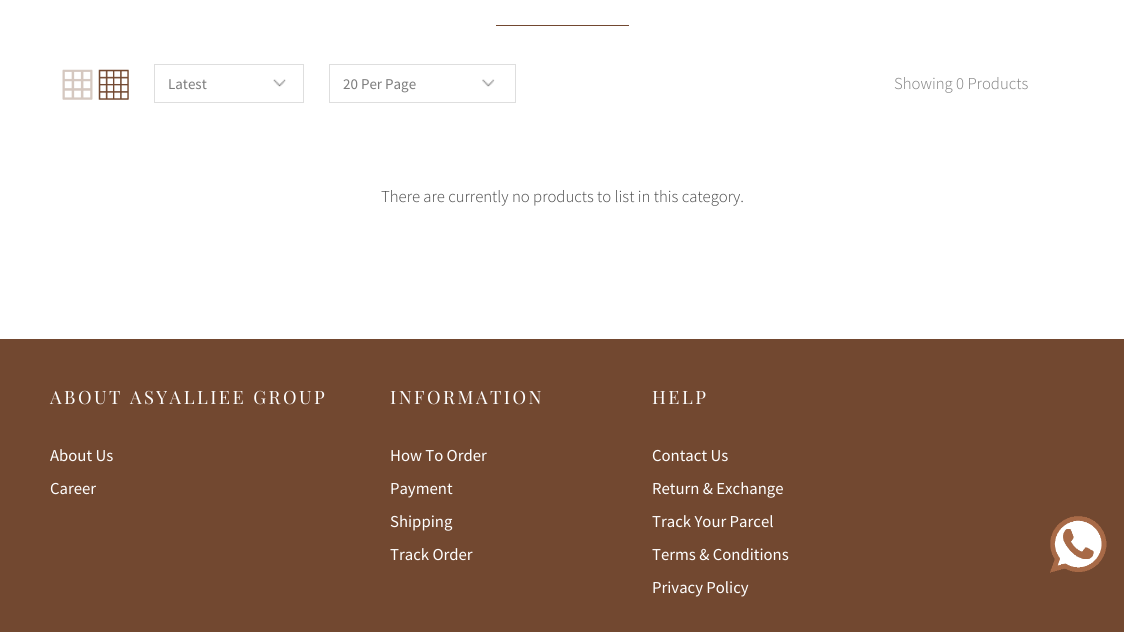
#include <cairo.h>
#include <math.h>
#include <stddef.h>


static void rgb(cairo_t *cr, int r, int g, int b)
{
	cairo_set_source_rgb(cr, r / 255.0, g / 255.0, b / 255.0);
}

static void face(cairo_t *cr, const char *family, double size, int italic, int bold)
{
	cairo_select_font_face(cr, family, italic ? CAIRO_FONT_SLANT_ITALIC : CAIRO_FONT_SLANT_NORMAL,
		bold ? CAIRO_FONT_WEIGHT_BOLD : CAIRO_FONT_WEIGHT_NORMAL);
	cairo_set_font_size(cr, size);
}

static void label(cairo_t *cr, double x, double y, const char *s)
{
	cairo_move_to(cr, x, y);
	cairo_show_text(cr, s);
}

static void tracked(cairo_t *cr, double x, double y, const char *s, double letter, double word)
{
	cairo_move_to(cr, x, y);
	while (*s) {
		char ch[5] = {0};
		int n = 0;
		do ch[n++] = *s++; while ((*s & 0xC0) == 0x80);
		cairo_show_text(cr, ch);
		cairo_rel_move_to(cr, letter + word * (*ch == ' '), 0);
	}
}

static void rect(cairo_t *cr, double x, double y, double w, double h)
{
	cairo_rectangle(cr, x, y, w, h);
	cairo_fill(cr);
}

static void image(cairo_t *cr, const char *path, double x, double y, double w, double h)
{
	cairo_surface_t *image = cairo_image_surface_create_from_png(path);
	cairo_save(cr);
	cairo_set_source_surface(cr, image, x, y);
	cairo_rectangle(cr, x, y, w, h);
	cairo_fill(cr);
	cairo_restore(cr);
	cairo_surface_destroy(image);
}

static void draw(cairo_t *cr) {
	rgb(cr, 255, 255, 255);
	cairo_paint(cr);
	rgb(cr, 114, 72, 48);
	rect(cr, 496, 25, 133, 1);
	image(cr, "image0.png", 62, 69, 31, 31);
	image(cr, "image1.png", 98, 69, 31, 31);
	image(cr, "image2.png", 273, 79, 13, 8);
	cairo_rectangle(cr, 154.5, 64.5, 149, 38);
	rgb(cr, 222, 222, 222);
	cairo_set_line_width(cr, 1);
	cairo_stroke(cr);
	face(cr, "Source Sans Pro", 15, 0, 0);
	rgb(cr, 124, 124, 124);
	label(cr, 168, 89, "Latest");
	image(cr, "image3.png", 482, 79, 13, 8);
	cairo_rectangle(cr, 329.5, 64.5, 186, 38);
	rgb(cr, 222, 222, 222);
	cairo_stroke(cr);
	rgb(cr, 124, 124, 124);
	label(cr, 343, 89, "20 Per Page");
	face(cr, "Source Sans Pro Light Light", 16.7, 0, 0);
	label(cr, 894, 89, "Showing 0 Products");
	rgb(cr, 68, 68, 68);
	label(cr, 381, 202, "There are currently no products to list in this category.");
	rgb(cr, 114, 72, 48);
	rect(cr, 0, 339, 1124, 293);
	face(cr, "Playfair Display", 18.3, 0, 0);
	rgb(cr, 255, 255, 255);
	tracked(cr, 50, 404, "ABOUT ASYALLIEE GROUP", 2.5, 0);
	face(cr, "Source Sans Pro", 16.7, 0, 0);
	label(cr, 50, 461, "About Us");
	label(cr, 50, 494, "Career");
	face(cr, "Playfair Display", 18.3, 0, 0);
	tracked(cr, 390, 404, "INFORMATION", 2.5, 0);
	face(cr, "Source Sans Pro", 16.7, 0, 0);
	label(cr, 390, 461, "How To Order");
	label(cr, 390, 494, "Payment");
	label(cr, 390, 527, "Shipping");
	label(cr, 390, 560, "Track Order");
	face(cr, "Playfair Display", 18.3, 0, 0);
	tracked(cr, 652, 404, "HELP", 2.5, 0);
	face(cr, "Source Sans Pro", 16.7, 0, 0);
	label(cr, 652, 461, "Contact Us");
	label(cr, 652, 494, "Return & Exchange");
	label(cr, 652, 527, "Track Your Parcel");
	label(cr, 652, 560, "Terms & Conditions");
	label(cr, 652, 593, "Privacy Policy");
	image(cr, "image4.png", 1050, 516, 57, 57);
}

int main(void) {
	cairo_surface_t *surface = cairo_image_surface_create(CAIRO_FORMAT_RGB24, 1124, 632);
	cairo_t *cr = cairo_create(surface);
	cairo_font_options_t *options = cairo_font_options_create();
	cairo_font_options_set_hint_metrics(options, CAIRO_HINT_METRICS_OFF);
	cairo_font_options_set_hint_style(options, CAIRO_HINT_STYLE_NONE);
	cairo_set_font_options(cr, options);
	cairo_set_miter_limit(cr, 4);
	draw(cr);
	cairo_surface_write_to_png(surface, "render.png");
	cairo_font_options_destroy(options);
	cairo_destroy(cr);
	cairo_surface_destroy(surface);
	return 0;
}
